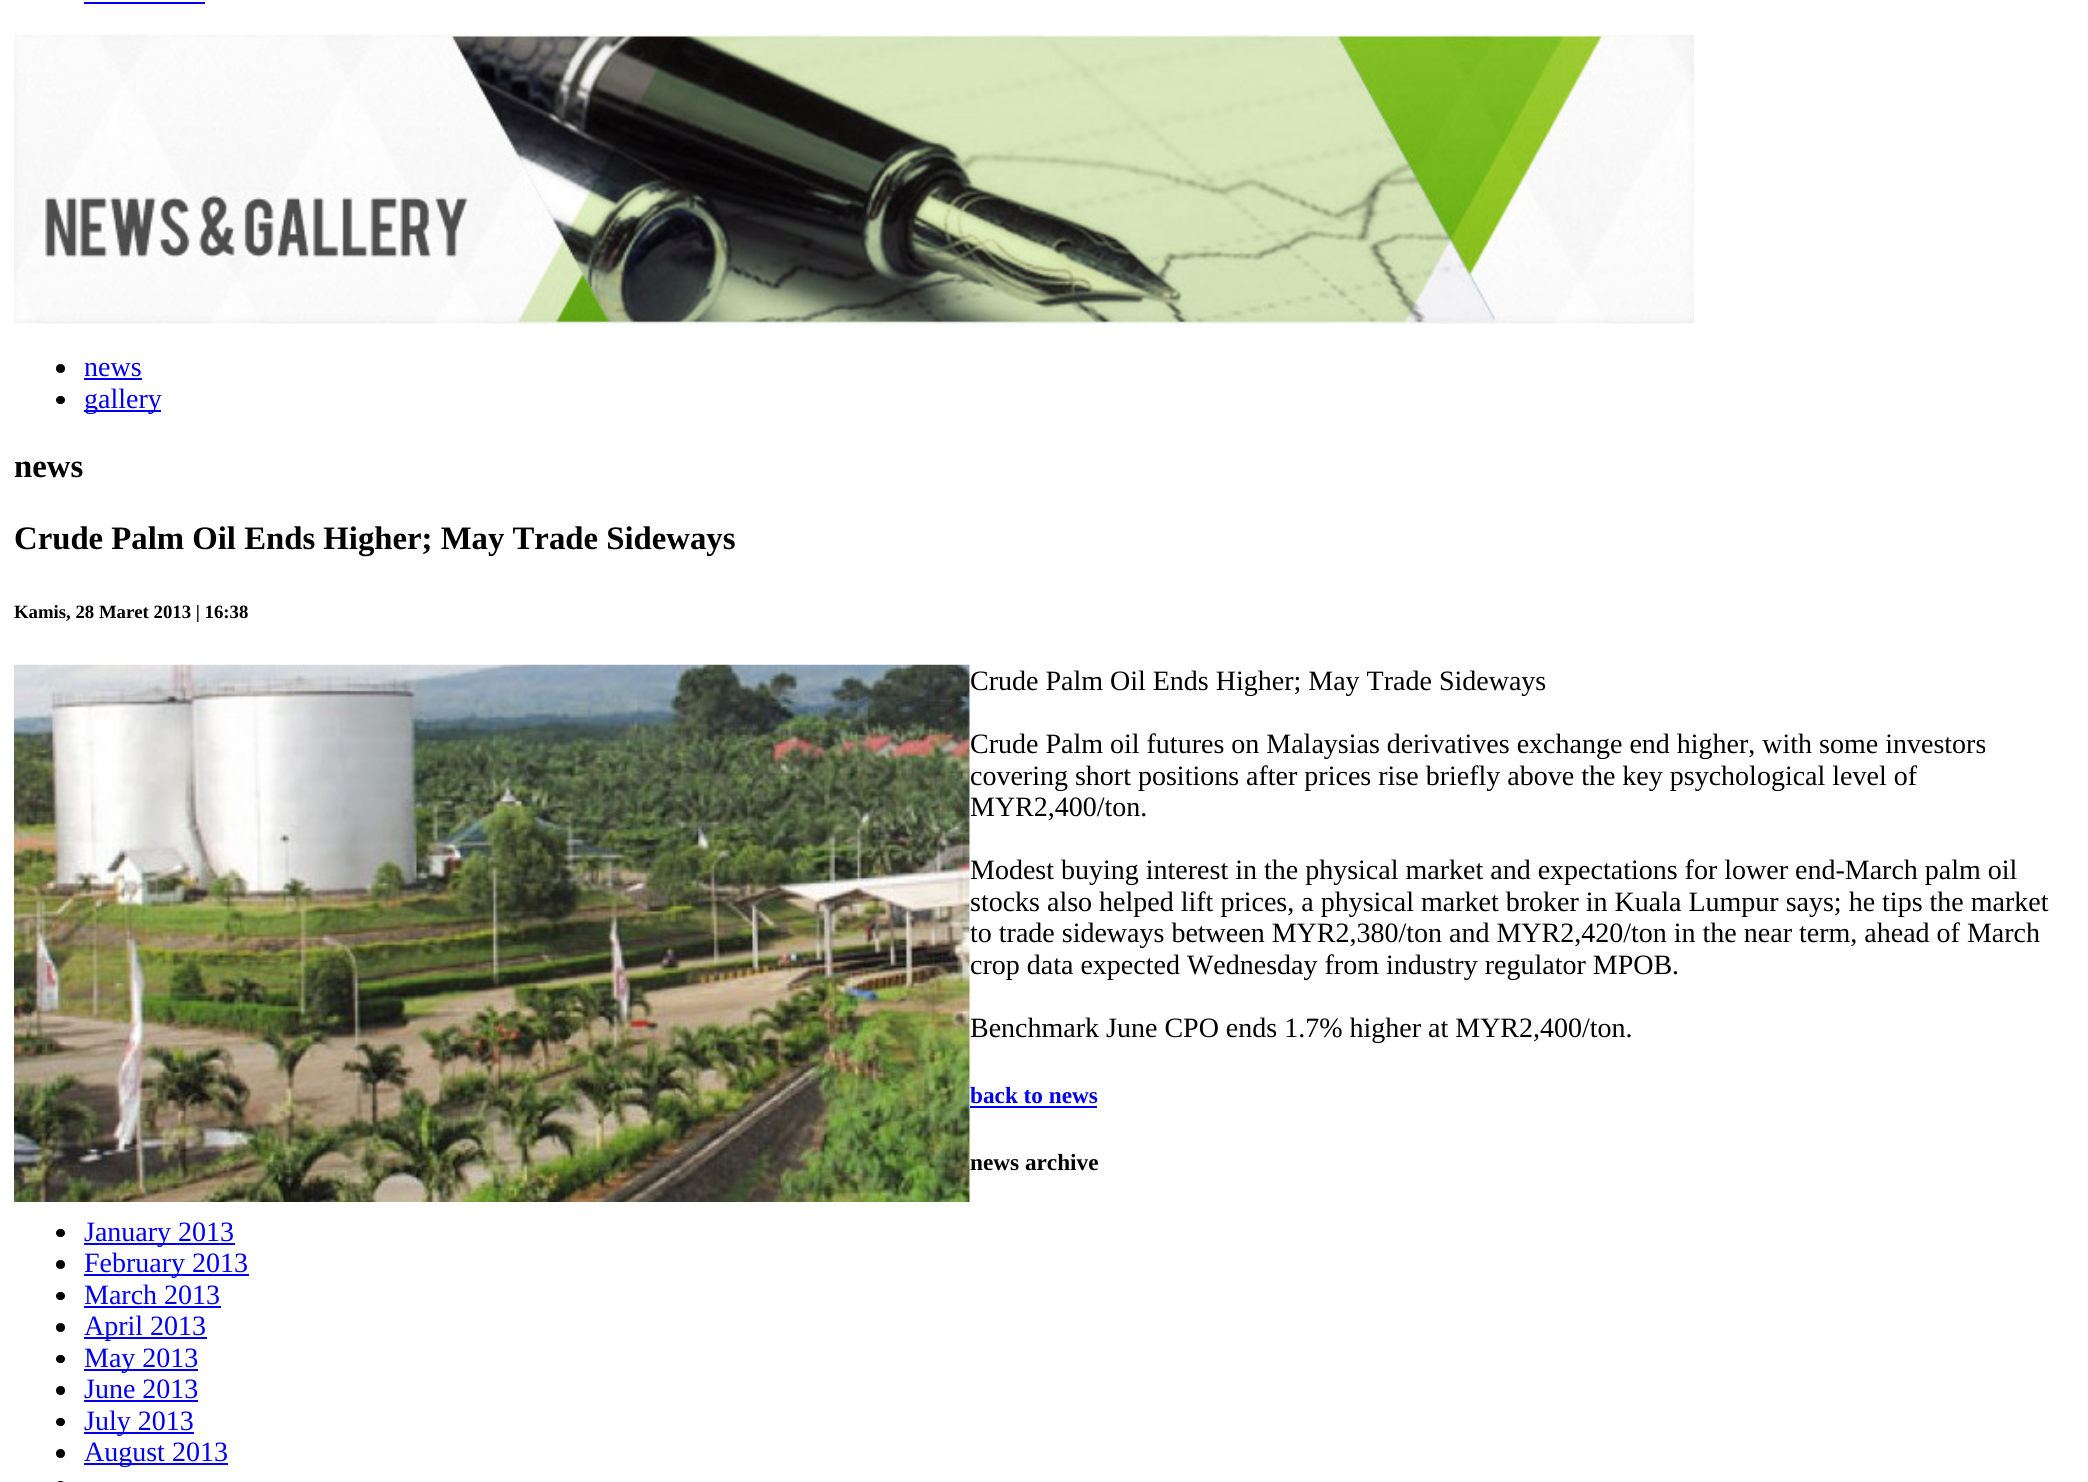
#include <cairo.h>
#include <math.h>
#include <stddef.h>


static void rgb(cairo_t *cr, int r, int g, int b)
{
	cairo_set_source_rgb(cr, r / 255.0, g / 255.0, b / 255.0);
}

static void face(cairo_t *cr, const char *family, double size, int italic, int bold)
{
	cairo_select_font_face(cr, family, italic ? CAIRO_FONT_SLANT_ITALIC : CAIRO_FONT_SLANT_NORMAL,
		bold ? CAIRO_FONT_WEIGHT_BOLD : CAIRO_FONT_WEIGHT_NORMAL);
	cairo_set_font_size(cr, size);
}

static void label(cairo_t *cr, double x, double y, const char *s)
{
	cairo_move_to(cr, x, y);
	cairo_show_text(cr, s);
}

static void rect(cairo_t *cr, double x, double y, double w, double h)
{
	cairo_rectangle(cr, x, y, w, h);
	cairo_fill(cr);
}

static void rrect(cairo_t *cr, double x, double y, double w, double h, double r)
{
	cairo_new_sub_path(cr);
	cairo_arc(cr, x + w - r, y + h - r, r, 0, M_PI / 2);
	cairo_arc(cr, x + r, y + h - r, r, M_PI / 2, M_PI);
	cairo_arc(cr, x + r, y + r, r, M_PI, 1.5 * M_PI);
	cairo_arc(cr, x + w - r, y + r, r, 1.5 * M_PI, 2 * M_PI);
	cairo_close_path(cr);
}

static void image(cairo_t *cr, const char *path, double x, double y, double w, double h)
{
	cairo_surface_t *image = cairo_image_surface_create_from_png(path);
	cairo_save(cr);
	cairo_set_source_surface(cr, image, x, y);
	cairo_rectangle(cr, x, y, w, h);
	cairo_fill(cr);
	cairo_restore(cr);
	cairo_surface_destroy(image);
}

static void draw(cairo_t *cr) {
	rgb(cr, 255, 255, 255);
	cairo_paint(cr);
	rgb(cr, 0, 0, 238);
	rect(cr, 84, 2, 121, 2);
	image(cr, "image0.png", 14, 34, 1680, 290);
	rgb(cr, 0, 0, 0);
	cairo_arc(cr, 60.5, 368.5, 4.5, 0, 2 * M_PI);
	cairo_fill(cr);
	face(cr, "Liberation Serif", 28, 0, 0);
	rgb(cr, 0, 0, 238);
	label(cr, 84, 376, "news");
	rect(cr, 84, 378, 58, 2);
	rgb(cr, 0, 0, 0);
	rrect(cr, 56, 396, 9, 8, 4);
	cairo_fill(cr);
	rgb(cr, 0, 0, 238);
	rect(cr, 84, 410, 77, 2);
	label(cr, 84, 408, "gallery");
	face(cr, "Liberation Serif", 32.75, 0, 1);
	rgb(cr, 0, 0, 0);
	label(cr, 14, 477, "news");
	label(cr, 14, 549, "Crude Palm Oil Ends Higher; May Trade Sideways");
	face(cr, "Liberation Serif", 18.75, 0, 1);
	label(cr, 14, 618, "Kamis, 28 Maret 2013 | 16:38");
	image(cr, "image1.png", 14, 664, 956, 538);
	face(cr, "Liberation Serif", 28, 0, 0);
	label(cr, 970, 690, "Crude Palm Oil Ends Higher; May Trade Sideways");
	label(cr, 970, 753, "Crude Palm oil futures on Malaysias derivatives exchange end higher, with some investors");
	label(cr, 970, 785, "covering short positions after prices rise briefly above the key psychological level of");
	label(cr, 970, 816, "MYR2,400/ton.");
	label(cr, 970, 879, "Modest buying interest in the physical market and expectations for lower end-March palm oil");
	label(cr, 970, 911, "stocks also helped lift prices, a physical market broker in Kuala Lumpur says; he tips the market");
	label(cr, 970, 942, "to trade sideways between MYR2,380/ton and MYR2,420/ton in the near term, ahead of March");
	label(cr, 970, 974, "crop data expected Wednesday from industry regulator MPOB.");
	label(cr, 970, 1037, "Benchmark June CPO ends 1.7% higher at MYR2,400/ton.");
	face(cr, "Liberation Serif", 23.25, 0, 1);
	rgb(cr, 0, 0, 238);
	label(cr, 970, 1103, "back to news");
	rect(cr, 970, 1106, 127, 2);
	rgb(cr, 0, 0, 0);
	label(cr, 970, 1170, "news archive");
	rrect(cr, 56, 1229, 9, 8, 4);
	cairo_fill(cr);
	rgb(cr, 0, 0, 238);
	rect(cr, 84, 1243, 151, 2);
	face(cr, "Liberation Serif", 28, 0, 0);
	label(cr, 84, 1241, "January 2013");
	rgb(cr, 0, 0, 0);
	cairo_new_path(cr);
	cairo_arc(cr, 60.5, 1264.5, 4.5, 0, 2 * M_PI);
	cairo_fill(cr);
	rgb(cr, 0, 0, 238);
	rect(cr, 84, 1274, 165, 2);
	label(cr, 84, 1272, "February 2013");
	rgb(cr, 0, 0, 0);
	rrect(cr, 56, 1292, 9, 8, 4);
	cairo_fill(cr);
	rgb(cr, 0, 0, 238);
	label(cr, 84, 1304, "March 2013");
	rect(cr, 84, 1306, 137, 2);
	rgb(cr, 0, 0, 0);
	cairo_new_path(cr);
	cairo_arc(cr, 60.5, 1327.5, 4.5, 0, 2 * M_PI);
	cairo_fill(cr);
	rgb(cr, 0, 0, 238);
	rect(cr, 84, 1337, 123, 2);
	label(cr, 84, 1335, "April 2013");
	rgb(cr, 0, 0, 0);
	rrect(cr, 56, 1355, 9, 8, 4);
	cairo_fill(cr);
	rgb(cr, 0, 0, 238);
	rect(cr, 84, 1369, 114, 2);
	label(cr, 84, 1367, "May 2013");
	rgb(cr, 0, 0, 0);
	cairo_new_path(cr);
	cairo_arc(cr, 60.5, 1390.5, 4.5, 0, 2 * M_PI);
	cairo_fill(cr);
	rgb(cr, 0, 0, 238);
	label(cr, 84, 1398, "June 2013");
	rect(cr, 84, 1400, 114, 2);
	rgb(cr, 0, 0, 0);
	rrect(cr, 56, 1418, 9, 8, 4);
	cairo_fill(cr);
	rgb(cr, 0, 0, 238);
	rect(cr, 84, 1432, 110, 2);
	label(cr, 84, 1430, "July 2013");
	rgb(cr, 0, 0, 0);
	cairo_new_path(cr);
	cairo_arc(cr, 60.5, 1453.5, 4.5, 0, 2 * M_PI);
	cairo_fill(cr);
	rgb(cr, 0, 0, 238);
	rect(cr, 84, 1463, 144, 2);
	label(cr, 84, 1461, "August 2013");
	rgb(cr, 0, 0, 0);
	rrect(cr, 56, 1481, 9, 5, 4);
	cairo_fill(cr);
}

int main(void) {
	cairo_surface_t *surface = cairo_image_surface_create(CAIRO_FORMAT_RGB24, 2088, 1482);
	cairo_t *cr = cairo_create(surface);
	cairo_font_options_t *options = cairo_font_options_create();
	cairo_font_options_set_hint_metrics(options, CAIRO_HINT_METRICS_OFF);
	cairo_font_options_set_hint_style(options, CAIRO_HINT_STYLE_NONE);
	cairo_set_font_options(cr, options);
	cairo_set_miter_limit(cr, 4);
	draw(cr);
	cairo_surface_write_to_png(surface, "render.png");
	cairo_font_options_destroy(options);
	cairo_destroy(cr);
	cairo_surface_destroy(surface);
	return 0;
}
